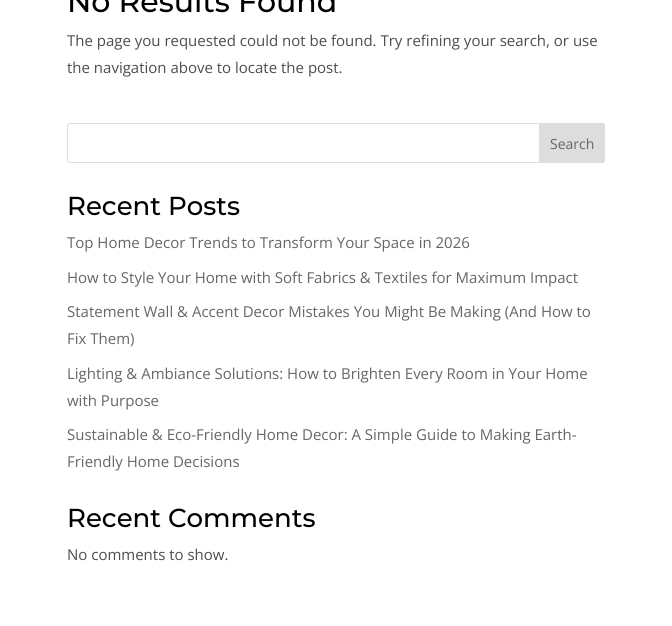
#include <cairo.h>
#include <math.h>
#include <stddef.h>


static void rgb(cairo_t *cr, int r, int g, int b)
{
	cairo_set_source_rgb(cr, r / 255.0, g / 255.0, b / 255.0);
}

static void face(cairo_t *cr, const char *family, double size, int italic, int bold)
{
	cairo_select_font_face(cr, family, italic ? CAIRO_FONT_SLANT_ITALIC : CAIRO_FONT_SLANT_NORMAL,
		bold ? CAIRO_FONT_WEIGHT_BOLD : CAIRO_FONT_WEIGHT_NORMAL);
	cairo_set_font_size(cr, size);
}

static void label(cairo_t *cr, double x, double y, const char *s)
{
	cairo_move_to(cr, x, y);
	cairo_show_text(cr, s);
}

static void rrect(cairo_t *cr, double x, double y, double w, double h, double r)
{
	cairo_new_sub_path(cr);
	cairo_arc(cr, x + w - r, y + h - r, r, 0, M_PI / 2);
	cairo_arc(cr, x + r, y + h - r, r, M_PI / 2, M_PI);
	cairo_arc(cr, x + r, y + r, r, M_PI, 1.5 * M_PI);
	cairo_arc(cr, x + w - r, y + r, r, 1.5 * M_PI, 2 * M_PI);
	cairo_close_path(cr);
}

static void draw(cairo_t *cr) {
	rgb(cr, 255, 255, 255);
	cairo_paint(cr);
	face(cr, "Montserrat Medium", 30, 0, 0);
	rgb(cr, 0, 0, 0);
	label(cr, 67, 12, "No Results Found");
	face(cr, "Open Sans", 15, 0, 0);
	rgb(cr, 77, 77, 77);
	label(cr, 67, 46, "The page you requested could not be found. Try refining your search, or use");
	label(cr, 67, 73, "the navigation above to locate the post.");
	rrect(cr, 67.5, 123.5, 537, 39, 2.5);
	rgb(cr, 221, 221, 221);
	cairo_set_line_width(cr, 1);
	cairo_stroke(cr);
	cairo_new_path(cr);
	cairo_move_to(cr, 539.5, 123.5);
	cairo_line_to(cr, 602, 123.5);
	cairo_curve_to(cr, 603.5, 123.5, 604.5, 124.5, 604.5, 126);
	cairo_line_to(cr, 604.5, 160);
	cairo_curve_to(cr, 604.5, 161.5, 603.5, 162.5, 602, 162.5);
	cairo_line_to(cr, 539.5, 162.5);
	cairo_close_path(cr);
	cairo_fill_preserve(cr);
	cairo_stroke(cr);
	face(cr, "Open Sans", 14, 0, 0);
	rgb(cr, 102, 102, 102);
	label(cr, 550, 149, "Search");
	face(cr, "Montserrat Medium", 26, 0, 0);
	rgb(cr, 0, 0, 0);
	label(cr, 67, 215, "Recent Posts");
	face(cr, "Open Sans", 15, 0, 0);
	rgb(cr, 102, 102, 102);
	label(cr, 67, 248, "Top Home Decor Trends to Transform Your Space in 2026");
	label(cr, 67, 283, "How to Style Your Home with Soft Fabrics & Textiles for Maximum Impact");
	label(cr, 67, 317, "Statement Wall & Accent Decor Mistakes You Might Be Making (And How to");
	label(cr, 67, 344, "Fix Them)");
	label(cr, 67, 379, "Lighting & Ambiance Solutions: How to Brighten Every Room in Your Home");
	label(cr, 67, 406, "with Purpose");
	label(cr, 67, 440, "Sustainable & Eco-Friendly Home Decor: A Simple Guide to Making Earth-");
	label(cr, 67, 467, "Friendly Home Decisions");
	face(cr, "Montserrat Medium", 26, 0, 0);
	rgb(cr, 0, 0, 0);
	label(cr, 67, 527, "Recent Comments");
	face(cr, "Open Sans", 15, 0, 0);
	rgb(cr, 77, 77, 77);
	label(cr, 67, 560, "No comments to show.");
}

int main(void) {
	cairo_surface_t *surface = cairo_image_surface_create(CAIRO_FORMAT_RGB24, 672, 626);
	cairo_t *cr = cairo_create(surface);
	cairo_font_options_t *options = cairo_font_options_create();
	cairo_font_options_set_hint_metrics(options, CAIRO_HINT_METRICS_OFF);
	cairo_font_options_set_hint_style(options, CAIRO_HINT_STYLE_NONE);
	cairo_set_font_options(cr, options);
	cairo_set_miter_limit(cr, 4);
	draw(cr);
	cairo_surface_write_to_png(surface, "render.png");
	cairo_font_options_destroy(options);
	cairo_destroy(cr);
	cairo_surface_destroy(surface);
	return 0;
}
